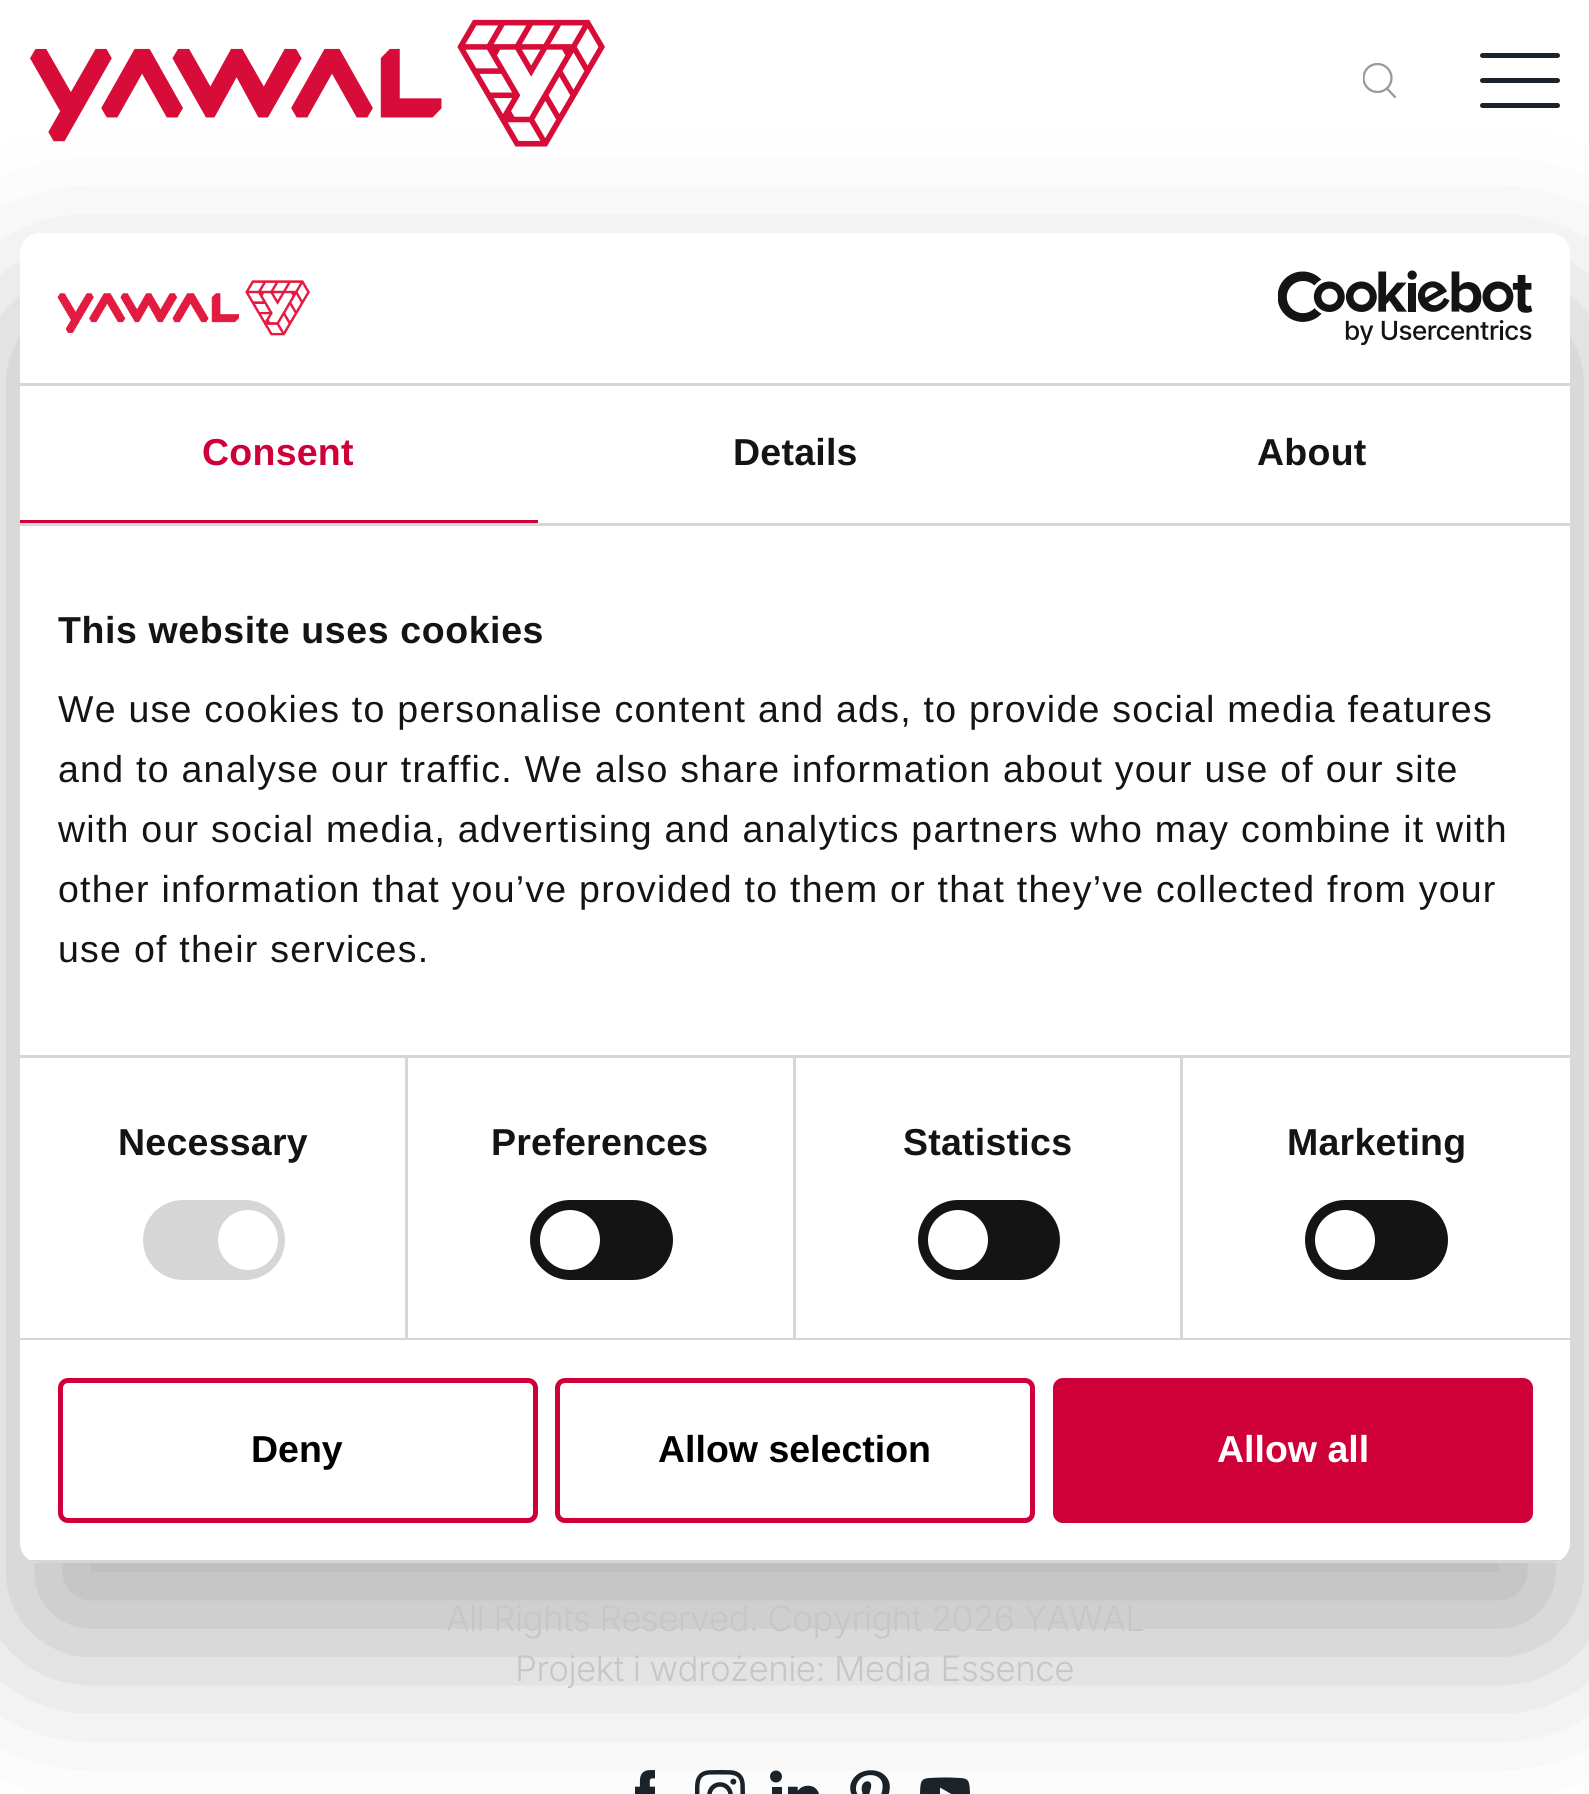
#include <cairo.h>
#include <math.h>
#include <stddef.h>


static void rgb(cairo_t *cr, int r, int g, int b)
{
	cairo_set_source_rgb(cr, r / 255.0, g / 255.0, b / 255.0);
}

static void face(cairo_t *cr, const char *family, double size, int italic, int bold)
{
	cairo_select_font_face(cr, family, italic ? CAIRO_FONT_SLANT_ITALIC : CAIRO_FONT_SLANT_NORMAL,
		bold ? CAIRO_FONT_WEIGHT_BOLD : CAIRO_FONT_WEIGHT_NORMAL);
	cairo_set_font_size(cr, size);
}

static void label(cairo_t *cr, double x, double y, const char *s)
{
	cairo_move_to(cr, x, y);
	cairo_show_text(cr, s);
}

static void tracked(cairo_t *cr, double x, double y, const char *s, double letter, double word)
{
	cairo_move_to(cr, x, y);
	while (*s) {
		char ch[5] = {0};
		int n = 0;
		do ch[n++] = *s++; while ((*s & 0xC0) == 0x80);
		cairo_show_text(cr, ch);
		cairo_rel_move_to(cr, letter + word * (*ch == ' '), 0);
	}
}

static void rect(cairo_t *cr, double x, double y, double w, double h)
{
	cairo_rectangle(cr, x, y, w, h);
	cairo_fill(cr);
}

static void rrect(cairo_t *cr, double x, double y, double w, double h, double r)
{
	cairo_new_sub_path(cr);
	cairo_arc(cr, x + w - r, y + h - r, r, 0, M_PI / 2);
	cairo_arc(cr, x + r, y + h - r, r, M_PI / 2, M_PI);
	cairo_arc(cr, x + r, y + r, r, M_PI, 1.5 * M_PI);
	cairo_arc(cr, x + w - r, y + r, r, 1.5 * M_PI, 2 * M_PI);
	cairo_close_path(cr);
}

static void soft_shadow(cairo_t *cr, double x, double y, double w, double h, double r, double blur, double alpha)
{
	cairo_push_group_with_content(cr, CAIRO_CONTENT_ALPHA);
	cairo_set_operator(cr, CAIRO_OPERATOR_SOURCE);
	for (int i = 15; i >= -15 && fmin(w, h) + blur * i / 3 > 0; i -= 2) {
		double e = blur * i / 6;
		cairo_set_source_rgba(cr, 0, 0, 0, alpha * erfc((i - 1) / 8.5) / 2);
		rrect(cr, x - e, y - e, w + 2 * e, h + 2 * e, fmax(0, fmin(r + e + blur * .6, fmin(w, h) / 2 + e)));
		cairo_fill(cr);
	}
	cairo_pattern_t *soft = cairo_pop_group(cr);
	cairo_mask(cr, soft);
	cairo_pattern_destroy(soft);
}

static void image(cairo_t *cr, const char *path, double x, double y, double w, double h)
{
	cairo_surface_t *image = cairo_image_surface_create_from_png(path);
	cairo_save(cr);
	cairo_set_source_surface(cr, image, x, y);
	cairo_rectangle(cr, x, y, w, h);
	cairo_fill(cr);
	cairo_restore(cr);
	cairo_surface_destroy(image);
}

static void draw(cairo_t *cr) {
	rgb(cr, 255, 255, 255);
	cairo_paint(cr);
	image(cr, "image0.png", 30, 19, 575, 128);
	cairo_save(cr);
	cairo_rectangle(cr, 1363, 63, 35, 37);
	cairo_clip(cr);
	cairo_arc(cr, 1377.5, 78, 14, 0, 2 * M_PI);
	rgb(cr, 151, 155, 158);
	cairo_set_line_width(cr, 2.3);
	cairo_stroke(cr);
	cairo_restore(cr);
	cairo_new_path(cr);
	cairo_move_to(cr, 1395, 97);
	cairo_line_to(cr, 1387, 88.5);
	rgb(cr, 151, 155, 158);
	cairo_set_line_width(cr, 2.3);
	cairo_set_line_cap(cr, CAIRO_LINE_CAP_ROUND);
	cairo_stroke(cr);
	rgb(cr, 26, 35, 43);
	rrect(cr, 1480, 53, 80, 5, 2.5);
	cairo_fill(cr);
	rrect(cr, 1480, 78, 80, 5, 2.5);
	cairo_fill(cr);
	rrect(cr, 1480, 103, 80, 5, 2.5);
	cairo_fill(cr);
	image(cr, "image3.png", 635, 1770, 20, 24);
	image(cr, "image4.png", 695, 1770, 50, 24);
	image(cr, "image5.png", 770, 1770, 49, 24);
	image(cr, "image6.png", 850, 1770, 40, 24);
	image(cr, "image7.png", 920, 1777, 50, 17);
	rgb(cr, 0, 0, 0);
	soft_shadow(cr, 20, 313, 1550, 1330, 20, 85, 0.3);
	rgb(cr, 255, 255, 255);
	rrect(cr, 20, 233, 1550, 1330, 20);
	cairo_fill(cr);
	rgb(cr, 214, 214, 214);
	rect(cr, 20, 383, 1550, 3);
	image(cr, "image1.png", 57, 280, 254, 56);
	image(cr, "image2.png", 1278, 270, 255, 75);
	rect(cr, 20, 523, 1550, 3);
	rgb(cr, 206, 0, 55);
	rect(cr, 20, 520, 518, 3);
	face(cr, "Liberation Sans", 37.5, 0, 1);
	tracked(cr, 202, 465, "Consent", 0.25, 0);
	rgb(cr, 20, 20, 20);
	tracked(cr, 733, 465, "Details", 0.25, 0);
	tracked(cr, 1257, 465, "About", 0.25, 0);
	rgb(cr, 214, 214, 214);
	rect(cr, 20, 1055, 1550, 3);
	rgb(cr, 20, 20, 20);
	tracked(cr, 58, 643, "This website uses cookies", 0.6, 0);
	face(cr, "Liberation Sans", 37.5, 0, 0);
	tracked(cr, 58, 722, "We use cookies to personalise content and ads, to provide social media features", 1.25, 0);
	tracked(cr, 58, 782, "and to analyse our traffic. We also share information about your use of our site", 1.25, 0);
	tracked(cr, 58, 842, "with our social media, advertising and analytics partners who may combine it with", 1.25, 0);
	tracked(cr, 58, 902, "other information that you’ve provided to them or that they’ve collected from your", 1.25, 0);
	tracked(cr, 58, 962, "use of their services.", 1.25, 0);
	rgb(cr, 214, 214, 214);
	rect(cr, 20, 1338, 1550, 2);
	rect(cr, 405, 1058, 3, 280);
	face(cr, "Liberation Sans", 37.5, 0, 1);
	rgb(cr, 20, 20, 20);
	tracked(cr, 118, 1155, "Necessary", 0.25, 0);
	rgb(cr, 214, 214, 214);
	rrect(cr, 143, 1200, 142, 80, 40);
	cairo_fill(cr);
	rgb(cr, 255, 255, 255);
	cairo_arc(cr, 248, 1240, 30, 0, 2 * M_PI);
	cairo_fill(cr);
	rgb(cr, 214, 214, 214);
	rect(cr, 793, 1058, 3, 280);
	rgb(cr, 20, 20, 20);
	tracked(cr, 491, 1155, "Preferences", 0.25, 0);
	rrect(cr, 530, 1200, 143, 80, 40);
	cairo_fill(cr);
	rgb(cr, 255, 255, 255);
	cairo_arc(cr, 570, 1240, 30, 0, 2 * M_PI);
	cairo_fill(cr);
	rgb(cr, 214, 214, 214);
	rect(cr, 1180, 1058, 3, 280);
	rgb(cr, 20, 20, 20);
	tracked(cr, 903, 1155, "Statistics", 0.25, 0);
	rrect(cr, 918, 1200, 142, 80, 40);
	cairo_fill(cr);
	rgb(cr, 255, 255, 255);
	cairo_arc(cr, 958, 1240, 30, 0, 2 * M_PI);
	cairo_fill(cr);
	rgb(cr, 20, 20, 20);
	tracked(cr, 1287, 1155, "Marketing", 0.25, 0);
	rrect(cr, 1305, 1200, 143, 80, 40);
	cairo_fill(cr);
	rgb(cr, 255, 255, 255);
	cairo_arc(cr, 1345, 1240, 30, 0, 2 * M_PI);
	cairo_fill(cr);
	cairo_save(cr);
	rrect(cr, 20, 233, 1550, 1330, 20);
	cairo_clip(cr);
	rgb(cr, 214, 214, 214);
	rect(cr, 29, 1560, 1532, 3);
	cairo_restore(cr);
	rrect(cr, 60.5, 1380.5, 475, 140, 7.5);
	rgb(cr, 206, 0, 55);
	cairo_set_line_width(cr, 5);
	cairo_set_line_cap(cr, CAIRO_LINE_CAP_BUTT);
	cairo_stroke(cr);
	rgb(cr, 0, 0, 0);
	label(cr, 251, 1462, "Deny");
	rrect(cr, 557.5, 1380.5, 475, 140, 7.5);
	rgb(cr, 206, 0, 55);
	cairo_stroke(cr);
	rgb(cr, 0, 0, 0);
	label(cr, 658, 1462, "Allow selection");
	rgb(cr, 206, 0, 55);
	rrect(cr, 1055.5, 1380.5, 475, 140, 7.5);
	cairo_fill_preserve(cr);
	cairo_stroke(cr);
	rgb(cr, 255, 255, 255);
	label(cr, 1217, 1462, "Allow all");
	face(cr, "Inter Light", 35, 0, 0);
	rgb(cr, 196, 199, 201);
	tracked(cr, 446, 1631, "All Rights Reserved. Copyright 2026 YAWAL", -0.6, 0);
	tracked(cr, 515, 1681, "Projekt i wdrożenie: Media Essence", -0.6, 0);
}

int main(void) {
	cairo_surface_t *surface = cairo_image_surface_create(CAIRO_FORMAT_RGB24, 1589, 1794);
	cairo_t *cr = cairo_create(surface);
	cairo_font_options_t *options = cairo_font_options_create();
	cairo_font_options_set_hint_metrics(options, CAIRO_HINT_METRICS_OFF);
	cairo_font_options_set_hint_style(options, CAIRO_HINT_STYLE_NONE);
	cairo_set_font_options(cr, options);
	cairo_set_miter_limit(cr, 4);
	draw(cr);
	cairo_surface_write_to_png(surface, "render.png");
	cairo_font_options_destroy(options);
	cairo_destroy(cr);
	cairo_surface_destroy(surface);
	return 0;
}
